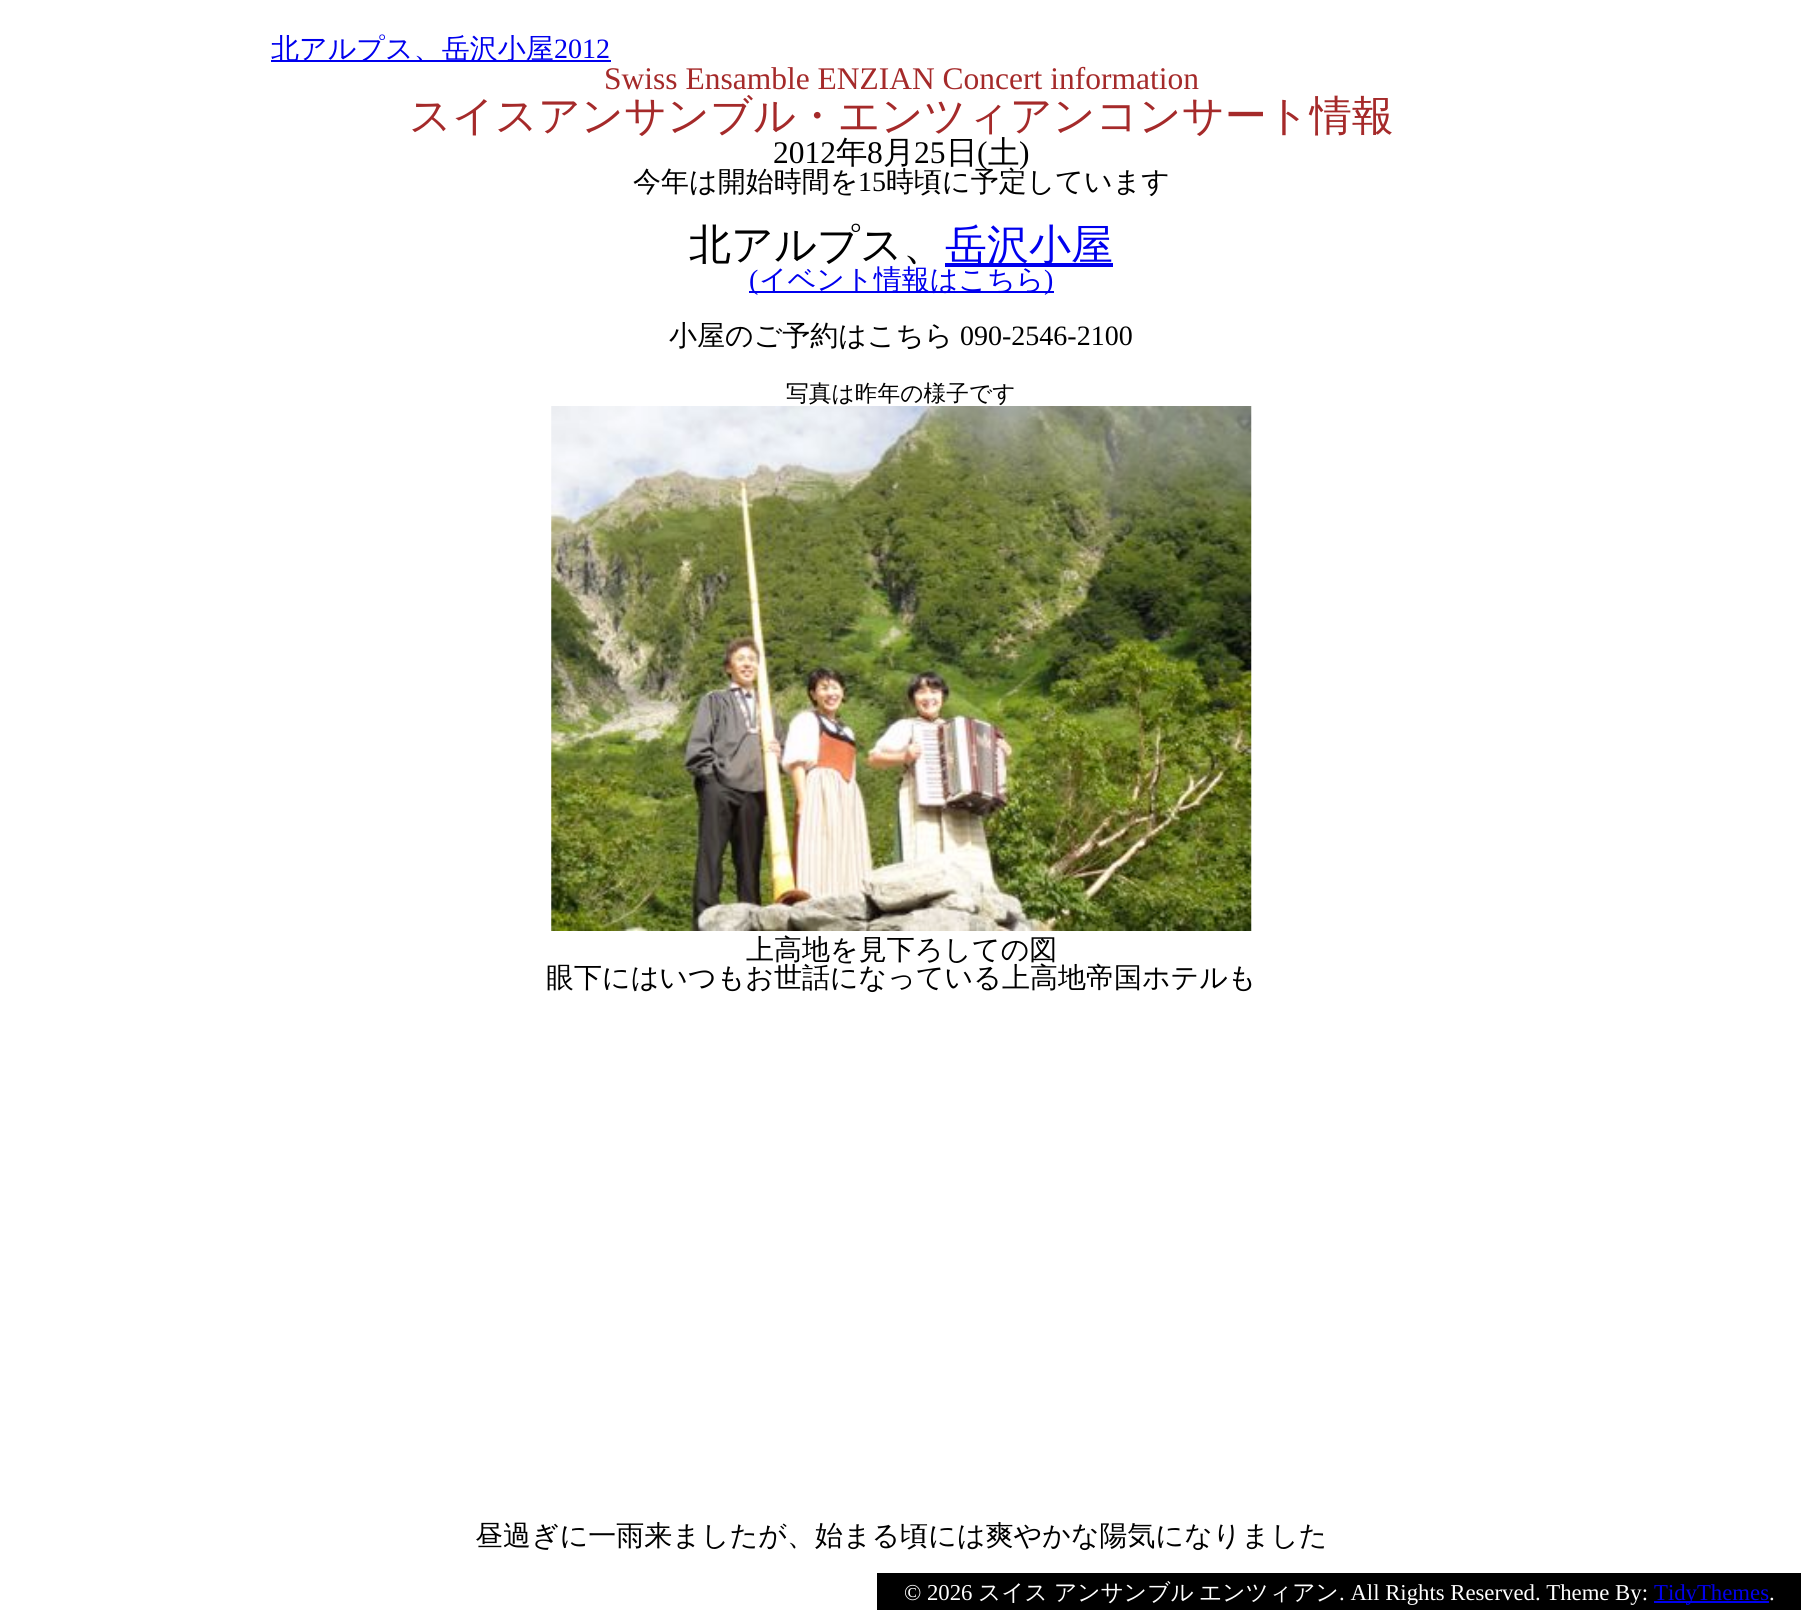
#include <cairo.h>
#include <math.h>
#include <stddef.h>


static void rgb(cairo_t *cr, int r, int g, int b)
{
	cairo_set_source_rgb(cr, r / 255.0, g / 255.0, b / 255.0);
}

static void face(cairo_t *cr, const char *family, double size, int italic, int bold)
{
	cairo_select_font_face(cr, family, italic ? CAIRO_FONT_SLANT_ITALIC : CAIRO_FONT_SLANT_NORMAL,
		bold ? CAIRO_FONT_WEIGHT_BOLD : CAIRO_FONT_WEIGHT_NORMAL);
	cairo_set_font_size(cr, size);
}

static void label(cairo_t *cr, double x, double y, const char *s)
{
	cairo_move_to(cr, x, y);
	cairo_show_text(cr, s);
}

static void rect(cairo_t *cr, double x, double y, double w, double h)
{
	cairo_rectangle(cr, x, y, w, h);
	cairo_fill(cr);
}

static void image(cairo_t *cr, const char *path, double x, double y, double w, double h)
{
	cairo_surface_t *image = cairo_image_surface_create_from_png(path);
	cairo_save(cr);
	cairo_set_source_surface(cr, image, x, y);
	cairo_rectangle(cr, x, y, w, h);
	cairo_fill(cr);
	cairo_restore(cr);
	cairo_surface_destroy(image);
}

static void draw(cairo_t *cr) {
	rgb(cr, 255, 255, 255);
	cairo_paint(cr);
	rgb(cr, 0, 0, 238);
	rect(cr, 271, 60, 340, 2);
	face(cr, "WenQuanYi Zen Hei Medium", 28, 0, 0);
	label(cr, 271, 58, "北アルプス、岳沢小屋");
	face(cr, "Liberation Serif", 28, 0, 0);
	label(cr, 554, 58, "2012");
	face(cr, "Liberation Serif", 31.5, 0, 0);
	rgb(cr, 165, 42, 42);
	label(cr, 604, 89, "Swiss Ensamble ENZIAN Concert information");
	face(cr, "WenQuanYi Zen Hei Medium", 42, 0, 0);
	label(cr, 409, 130, "スイスアンサンブル・エンツィアンコンサート情報");
	face(cr, "Liberation Serif", 31.5, 0, 0);
	rgb(cr, 0, 0, 0);
	label(cr, 773, 163, "2012");
	face(cr, "WenQuanYi Zen Hei Medium", 31.5, 0, 0);
	label(cr, 836, 163, "年");
	face(cr, "Liberation Serif", 31.5, 0, 0);
	label(cr, 867, 163, "8");
	face(cr, "WenQuanYi Zen Hei Medium", 31.5, 0, 0);
	label(cr, 883, 163, "月");
	face(cr, "Liberation Serif", 31.5, 0, 0);
	label(cr, 914, 163, "25");
	face(cr, "WenQuanYi Zen Hei Medium", 31.5, 0, 0);
	label(cr, 946, 163, "日");
	face(cr, "Liberation Serif", 31.5, 0, 0);
	label(cr, 977, 163, "(");
	face(cr, "WenQuanYi Zen Hei Medium", 31.5, 0, 0);
	label(cr, 988, 163, "土");
	face(cr, "Liberation Serif", 31.5, 0, 0);
	label(cr, 1019, 163, ")");
	face(cr, "WenQuanYi Zen Hei Medium", 28, 0, 0);
	label(cr, 633, 191, "今年は開始時間を");
	face(cr, "Liberation Serif", 28, 0, 0);
	label(cr, 858, 191, "15");
	face(cr, "WenQuanYi Zen Hei Medium", 28, 0, 0);
	label(cr, 886, 191, "時頃に予定しています");
	face(cr, "WenQuanYi Zen Hei Medium", 42, 0, 0);
	label(cr, 689, 259, "北アルプス、");
	rgb(cr, 0, 0, 238);
	rect(cr, 945, 263, 168, 4);
	label(cr, 945, 259, "岳沢小屋");
	rect(cr, 749, 291, 305, 2);
	face(cr, "Liberation Serif", 28, 0, 0);
	label(cr, 749, 289, "(");
	face(cr, "WenQuanYi Zen Hei Medium", 28, 0, 0);
	label(cr, 759, 289, "イベント情報はこちら");
	face(cr, "Liberation Serif", 28, 0, 0);
	label(cr, 1044, 289, ")");
	face(cr, "WenQuanYi Zen Hei Medium", 28, 0, 0);
	rgb(cr, 0, 0, 0);
	label(cr, 669, 345, "小屋のご予約はこちら");
	face(cr, "Liberation Serif", 28, 0, 0);
	label(cr, 960, 345, "090-2546-2100");
	face(cr, "WenQuanYi Zen Hei Medium", 22.75, 0, 0);
	label(cr, 786, 401, "写真は昨年の様子です");
	image(cr, "image0.png", 551, 406, 701, 525);
	face(cr, "WenQuanYi Zen Hei Medium", 28, 0, 0);
	label(cr, 746, 959, "上高地を見下ろしての図");
	label(cr, 546, 987, "眼下にはいつもお世話になっている上高地帝国ホテルも");
	label(cr, 475, 1545, "昼過ぎに一雨来ましたが、始まる頃には爽やかな陽気になりました");
	rect(cr, 877, 1573, 924, 37);
	face(cr, "Liberation Serif", 22.75, 0, 0);
	rgb(cr, 255, 255, 255);
	label(cr, 904, 1600, "© 2026");
	face(cr, "WenQuanYi Zen Hei Medium", 22.75, 0, 0);
	label(cr, 978, 1600, "スイス");
	label(cr, 1054, 1600, "アンサンブル");
	label(cr, 1199, 1600, "エンツィアン");
	face(cr, "Liberation Serif", 22.75, 0, 0);
	label(cr, 1339, 1600, ". All Rights Reserved. Theme By:");
	rgb(cr, 0, 0, 238);
	rect(cr, 1654, 1601, 115, 2);
	label(cr, 1654, 1600, "TidyThemes");
	rgb(cr, 255, 255, 255);
	label(cr, 1769, 1600, ".");
}

int main(void) {
	cairo_surface_t *surface = cairo_image_surface_create(CAIRO_FORMAT_RGB24, 1801, 1610);
	cairo_t *cr = cairo_create(surface);
	cairo_font_options_t *options = cairo_font_options_create();
	cairo_font_options_set_hint_metrics(options, CAIRO_HINT_METRICS_OFF);
	cairo_font_options_set_hint_style(options, CAIRO_HINT_STYLE_NONE);
	cairo_set_font_options(cr, options);
	cairo_set_miter_limit(cr, 4);
	draw(cr);
	cairo_surface_write_to_png(surface, "render.png");
	cairo_font_options_destroy(options);
	cairo_destroy(cr);
	cairo_surface_destroy(surface);
	return 0;
}
